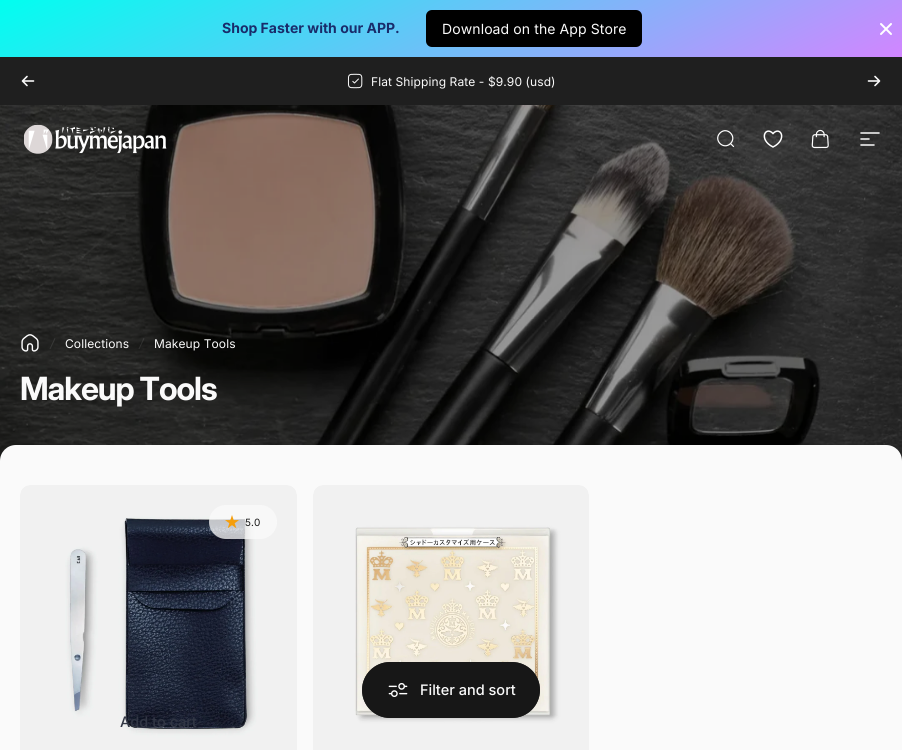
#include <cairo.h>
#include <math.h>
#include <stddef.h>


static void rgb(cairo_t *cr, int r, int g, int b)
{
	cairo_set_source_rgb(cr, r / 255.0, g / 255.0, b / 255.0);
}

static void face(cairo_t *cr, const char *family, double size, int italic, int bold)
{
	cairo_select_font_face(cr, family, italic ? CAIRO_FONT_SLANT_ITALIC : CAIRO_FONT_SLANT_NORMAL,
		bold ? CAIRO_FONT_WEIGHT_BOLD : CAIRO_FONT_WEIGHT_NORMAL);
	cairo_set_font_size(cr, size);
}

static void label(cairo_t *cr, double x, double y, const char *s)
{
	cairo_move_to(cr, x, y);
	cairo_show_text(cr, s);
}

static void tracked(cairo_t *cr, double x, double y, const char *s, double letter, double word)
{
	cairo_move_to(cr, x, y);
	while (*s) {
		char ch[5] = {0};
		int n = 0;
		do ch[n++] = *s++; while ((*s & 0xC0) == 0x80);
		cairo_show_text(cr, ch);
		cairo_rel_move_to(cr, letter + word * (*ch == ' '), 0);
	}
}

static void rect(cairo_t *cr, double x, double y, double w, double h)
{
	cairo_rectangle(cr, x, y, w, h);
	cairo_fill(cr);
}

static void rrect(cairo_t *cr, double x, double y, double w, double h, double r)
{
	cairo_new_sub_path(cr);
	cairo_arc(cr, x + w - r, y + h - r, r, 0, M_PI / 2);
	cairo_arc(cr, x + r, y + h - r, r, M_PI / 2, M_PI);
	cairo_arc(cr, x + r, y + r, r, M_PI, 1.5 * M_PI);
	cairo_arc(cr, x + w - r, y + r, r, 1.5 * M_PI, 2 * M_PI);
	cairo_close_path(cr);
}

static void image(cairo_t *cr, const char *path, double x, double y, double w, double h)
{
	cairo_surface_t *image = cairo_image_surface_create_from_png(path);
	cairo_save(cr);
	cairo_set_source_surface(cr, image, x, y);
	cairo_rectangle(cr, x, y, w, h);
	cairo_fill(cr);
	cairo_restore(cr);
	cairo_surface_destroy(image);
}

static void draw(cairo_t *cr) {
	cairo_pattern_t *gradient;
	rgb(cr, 31, 31, 31);
	cairo_paint(cr);
	gradient = cairo_pattern_create_linear(347, -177, 555, 234);
	cairo_pattern_add_color_stop_rgba(gradient, 0, 0, 1, 0.941, 1);
	cairo_pattern_add_color_stop_rgba(gradient, 1, 0.824, 0.522, 1, 1);
	cairo_set_source(cr, gradient);
	cairo_pattern_destroy(gradient);
	rect(cr, 0, 0, 902, 57);
	face(cr, "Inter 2", 14, 0, 1);
	rgb(cr, 25, 44, 107);
	label(cr, 222, 33, "Shop Faster with our APP.");
	rgb(cr, 0, 0, 0);
	rrect(cr, 426, 10, 216, 37, 6);
	cairo_fill(cr);
	face(cr, "Inter", 14, 0, 0);
	rgb(cr, 250, 250, 250);
	tracked(cr, 442, 34, "Download on the App Store", 0.1, 0);
	image(cr, "image0.png", 880, 23, 12, 12);
	cairo_new_path(cr);
	cairo_move_to(cr, 27, 76.5);
	cairo_line_to(cr, 22.5, 81);
	cairo_move_to(cr, 22.5, 81);
	cairo_line_to(cr, 27, 85.5);
	cairo_move_to(cr, 22.5, 81);
	cairo_line_to(cr, 33.5, 81);
	cairo_set_line_width(cr, 1.6);
	cairo_set_line_cap(cr, CAIRO_LINE_CAP_ROUND);
	cairo_set_line_join(cr, CAIRO_LINE_JOIN_ROUND);
	cairo_stroke(cr);
	image(cr, "image1.png", 347, 73, 16, 16);
	face(cr, "Inter", 12, 0, 0);
	tracked(cr, 371, 86, "Flat Shipping Rate - $9.90 (usd)", 0.1, 0);
	cairo_new_path(cr);
	cairo_move_to(cr, 868.5, 81);
	cairo_line_to(cr, 879.5, 81);
	cairo_move_to(cr, 879.5, 81);
	cairo_line_to(cr, 875, 76.5);
	cairo_move_to(cr, 879.5, 81);
	cairo_line_to(cr, 875, 85.5);
	cairo_stroke(cr);
	image(cr, "image4.png", 0, 105, 902, 356);
	image(cr, "image2.png", 24, 125, 143, 29);
	cairo_new_path(cr);
	cairo_move_to(cr, 733.5, 146.5);
	cairo_line_to(cr, 730.5, 143.5);
	cairo_move_to(cr, 730.5, 143.5);
	cairo_curve_to(cr, 737.5, 136.5, 727, 126, 720, 133);
	cairo_curve_to(cr, 713, 140, 723.5, 150.5, 730.5, 143.5);
	cairo_close_path(cr);
	rgb(cr, 255, 255, 255);
	cairo_set_line_width(cr, 1.2);
	cairo_set_line_join(cr, CAIRO_LINE_JOIN_MITER);
	cairo_stroke(cr);
	cairo_new_path(cr);
	cairo_move_to(cr, 773, 147);
	cairo_curve_to(cr, 758, 139.5, 765.5, 125.5, 773, 133.5);
	cairo_curve_to(cr, 780.5, 125.5, 788, 139.5, 773, 147);
	cairo_close_path(cr);
	cairo_set_line_width(cr, 1.5);
	cairo_set_line_cap(cr, CAIRO_LINE_CAP_BUTT);
	cairo_stroke(cr);
	image(cr, "image3.png", 811, 129, 18, 20);
	cairo_new_path(cr);
	cairo_move_to(cr, 861, 133);
	cairo_line_to(cr, 879, 133);
	cairo_move_to(cr, 861, 139);
	cairo_line_to(cr, 869, 139);
	cairo_move_to(cr, 861, 145);
	cairo_line_to(cr, 874, 145);
	cairo_set_line_cap(cr, CAIRO_LINE_CAP_ROUND);
	cairo_stroke(cr);
	image(cr, "image5.png", 21, 334, 18, 18);
	rgb(cr, 56, 56, 55);
	cairo_new_path(cr);
	cairo_move_to(cr, 54.5, 338);
	cairo_line_to(cr, 55.5, 338.5);
	cairo_line_to(cr, 50.5, 349);
	cairo_line_to(cr, 49.5, 349);
	cairo_close_path(cr);
	cairo_fill(cr);
	rgb(cr, 250, 250, 250);
	tracked(cr, 65, 348, "Collections", 0.1, 0);
	cairo_set_source_rgba(cr, 1, 1, 1, 0.1);
	cairo_new_path(cr);
	cairo_move_to(cr, 143.5, 338);
	cairo_line_to(cr, 144.5, 338.5);
	cairo_line_to(cr, 139.5, 349);
	cairo_line_to(cr, 138.5, 349);
	cairo_close_path(cr);
	cairo_fill(cr);
	rgb(cr, 250, 250, 250);
	tracked(cr, 154, 348, "Makeup Tools", 0.1, 0);
	face(cr, "Inter", 32, 0, 1);
	tracked(cr, 20, 400, "Makeup Tools", -1, 0);
	cairo_new_path(cr);
	cairo_move_to(cr, 16, 445);
	cairo_line_to(cr, 886, 445);
	cairo_curve_to(cr, 895, 445, 902, 452, 902, 461);
	cairo_line_to(cr, 902, 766);
	cairo_line_to(cr, 0, 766);
	cairo_line_to(cr, 0, 461);
	cairo_curve_to(cr, 0, 452, 7, 445, 16, 445);
	cairo_close_path(cr);
	cairo_fill(cr);
	rgb(cr, 255, 255, 255);
	rrect(cr, 20, 485, 277, 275, 10);
	cairo_fill(cr);
	image(cr, "image6.png", 20, 485, 277, 265);
	cairo_set_source_rgba(cr, 0.98, 0.98, 0.98, 0.75);
	rrect(cr, 209, 505, 68, 34, 17);
	cairo_fill(cr);
	image(cr, "image7.png", 225, 515, 14, 14);
	face(cr, "Inter", 10, 0, 0);
	rgb(cr, 23, 23, 23);
	tracked(cr, 245, 526, "5.0", 0.1, 0);
	face(cr, "Inter Medium", 14.5, 0, 0);
	rgb(cr, 49, 54, 68);
	label(cr, 120, 727, "Add to cart");
	rgb(cr, 255, 255, 255);
	rrect(cr, 313, 485, 276, 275, 10);
	cairo_fill(cr);
	image(cr, "image8.png", 313, 485, 276, 265);
	rgb(cr, 23, 23, 23);
	rrect(cr, 362, 662, 178, 56, 28);
	cairo_fill(cr);
	rrect(cr, 362.5, 662.5, 177, 55, 27.5);
	cairo_set_source_rgba(cr, 0.09, 0.09, 0.09, 0.8);
	cairo_set_line_width(cr, 1);
	cairo_set_line_cap(cr, CAIRO_LINE_CAP_BUTT);
	cairo_stroke(cr);
	image(cr, "image9.png", 388, 683, 20, 14);
	rgb(cr, 250, 250, 250);
	label(cr, 420, 695, "Filter and sort");
}

int main(void) {
	cairo_surface_t *surface = cairo_image_surface_create(CAIRO_FORMAT_RGB24, 902, 750);
	cairo_t *cr = cairo_create(surface);
	cairo_font_options_t *options = cairo_font_options_create();
	cairo_font_options_set_hint_metrics(options, CAIRO_HINT_METRICS_OFF);
	cairo_font_options_set_hint_style(options, CAIRO_HINT_STYLE_NONE);
	cairo_set_font_options(cr, options);
	cairo_set_miter_limit(cr, 4);
	draw(cr);
	cairo_surface_write_to_png(surface, "render.png");
	cairo_font_options_destroy(options);
	cairo_destroy(cr);
	cairo_surface_destroy(surface);
	return 0;
}
